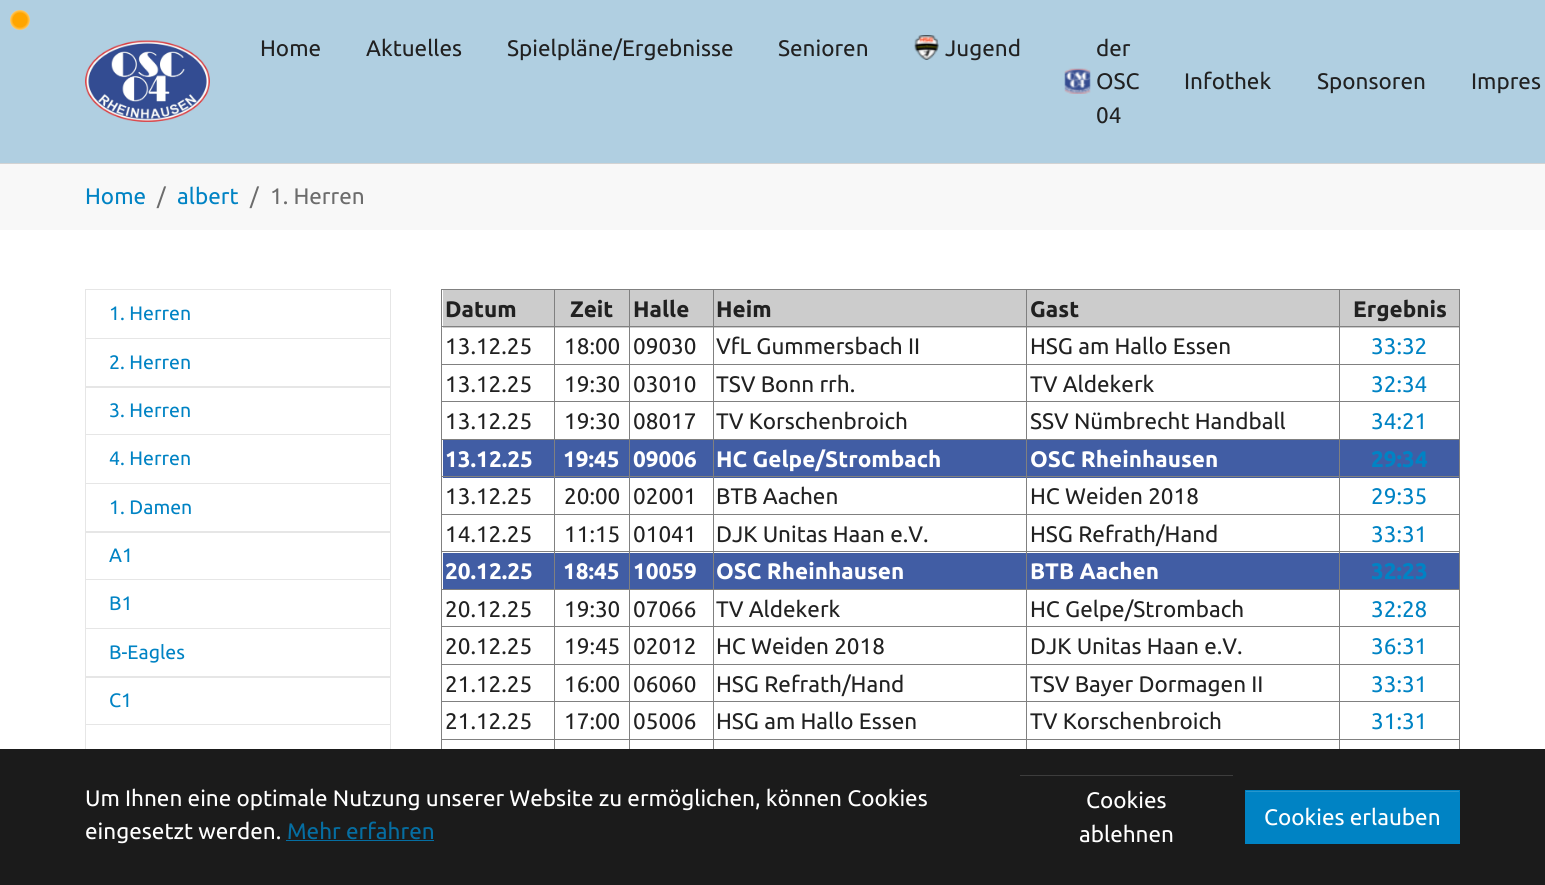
#include <cairo.h>
#include <math.h>
#include <stddef.h>


static void rgb(cairo_t *cr, int r, int g, int b)
{
	cairo_set_source_rgb(cr, r / 255.0, g / 255.0, b / 255.0);
}

static void face(cairo_t *cr, const char *family, double size, int italic, int bold)
{
	cairo_select_font_face(cr, family, italic ? CAIRO_FONT_SLANT_ITALIC : CAIRO_FONT_SLANT_NORMAL,
		bold ? CAIRO_FONT_WEIGHT_BOLD : CAIRO_FONT_WEIGHT_NORMAL);
	cairo_set_font_size(cr, size);
}

static void label(cairo_t *cr, double x, double y, const char *s)
{
	cairo_move_to(cr, x, y);
	cairo_show_text(cr, s);
}

static void rect(cairo_t *cr, double x, double y, double w, double h)
{
	cairo_rectangle(cr, x, y, w, h);
	cairo_fill(cr);
}

static void image(cairo_t *cr, const char *path, double x, double y, double w, double h)
{
	cairo_surface_t *image = cairo_image_surface_create_from_png(path);
	cairo_save(cr);
	cairo_set_source_surface(cr, image, x, y);
	cairo_rectangle(cr, x, y, w, h);
	cairo_fill(cr);
	cairo_restore(cr);
	cairo_surface_destroy(image);
}

static void draw(cairo_t *cr) {
	cairo_pattern_t *gradient;
	rgb(cr, 255, 255, 255);
	cairo_paint(cr);
	rgb(cr, 176, 207, 225);
	rect(cr, 0, 0, 1545, 163);
	gradient = cairo_pattern_create_radial(20, 20, 0, 20, 20, 14);
	cairo_pattern_add_color_stop_rgba(gradient, 0, 1, 0.647, 0, 1);
	cairo_pattern_add_color_stop_rgba(gradient, 0.5, 1, 0.647, 0, 1);
	cairo_pattern_add_color_stop_rgba(gradient, 1, 1, 1, 1, 1);
	cairo_set_source(cr, gradient);
	cairo_pattern_destroy(gradient);
	cairo_arc(cr, 20, 20, 10, 0, 2 * M_PI);
	cairo_fill(cr);
	image(cr, "image0.png", 85, 40, 125, 82);
	face(cr, "Ubuntu", 22.5, 0, 0);
	rgb(cr, 33, 33, 33);
	label(cr, 260, 56, "Home");
	label(cr, 366, 56, "Aktuelles");
	label(cr, 507, 56, "Spielpläne/Ergebnisse");
	label(cr, 778, 56, "Senioren");
	image(cr, "image1.png", 914, 35, 25, 25);
	label(cr, 945, 56, "Jugend");
	image(cr, "image2.png", 1064, 68, 27, 26);
	label(cr, 1096, 56, "der");
	label(cr, 1096, 89, "OSC");
	label(cr, 1096, 123, "04");
	label(cr, 1184, 89, "Infothek");
	label(cr, 1317, 89, "Sponsoren");
	label(cr, 1471, 89, "Impres");
	rgb(cr, 248, 248, 248);
	rect(cr, 0, 164, 1545, 66);
	rgb(cr, 211, 211, 211);
	rect(cr, 0, 163, 1545, 1);
	rgb(cr, 0, 131, 196);
	label(cr, 85, 204, "Home");
	rgb(cr, 108, 108, 108);
	label(cr, 157, 204, "/");
	rgb(cr, 0, 131, 196);
	label(cr, 177, 204, "albert");
	rgb(cr, 108, 108, 108);
	label(cr, 250, 204, "/");
	label(cr, 270, 204, "1. Herren");
	cairo_rectangle(cr, 85.5, 289.5, 305, 49);
	rgb(cr, 230, 230, 230);
	cairo_set_line_width(cr, 1);
	cairo_stroke(cr);
	face(cr, "Ubuntu", 19.5, 0, 0);
	rgb(cr, 0, 131, 196);
	label(cr, 109, 320, "1. Herren");
	cairo_rectangle(cr, 85.5, 338.5, 305, 49);
	rgb(cr, 230, 230, 230);
	cairo_stroke(cr);
	rgb(cr, 0, 131, 196);
	label(cr, 109, 369, "2. Herren");
	cairo_rectangle(cr, 85.5, 386.5, 305, 48);
	rgb(cr, 230, 230, 230);
	cairo_stroke(cr);
	rgb(cr, 0, 131, 196);
	label(cr, 109, 417, "3. Herren");
	cairo_rectangle(cr, 85.5, 434.5, 305, 49);
	rgb(cr, 230, 230, 230);
	cairo_stroke(cr);
	rgb(cr, 0, 131, 196);
	label(cr, 109, 465, "4. Herren");
	cairo_rectangle(cr, 85.5, 483.5, 305, 49);
	rgb(cr, 230, 230, 230);
	cairo_stroke(cr);
	rgb(cr, 0, 131, 196);
	label(cr, 109, 514, "1. Damen");
	cairo_rectangle(cr, 85.5, 531.5, 305, 48);
	rgb(cr, 230, 230, 230);
	cairo_stroke(cr);
	rgb(cr, 0, 131, 196);
	label(cr, 109, 562, "A1");
	cairo_rectangle(cr, 85.5, 579.5, 305, 49);
	rgb(cr, 230, 230, 230);
	cairo_stroke(cr);
	rgb(cr, 0, 131, 196);
	label(cr, 109, 610, "B1");
	cairo_rectangle(cr, 85.5, 628.5, 305, 49);
	rgb(cr, 230, 230, 230);
	cairo_stroke(cr);
	rgb(cr, 0, 131, 196);
	label(cr, 109, 659, "B-Eagles");
	cairo_rectangle(cr, 85.5, 676.5, 305, 48);
	rgb(cr, 230, 230, 230);
	cairo_stroke(cr);
	rgb(cr, 0, 131, 196);
	label(cr, 109, 707, "C1");
	cairo_rectangle(cr, 85.5, 724.5, 305, 49);
	rgb(cr, 230, 230, 230);
	cairo_stroke(cr);
	rgb(cr, 204, 204, 204);
	rect(cr, 443, 290, 111, 38);
	rgb(cr, 128, 128, 128);
	rect(cr, 1339, 289, 121, 1);
	rgb(cr, 204, 204, 204);
	rect(cr, 1027, 290, 312, 38);
	rect(cr, 1340, 290, 119, 38);
	rgb(cr, 128, 128, 128);
	rect(cr, 1339, 326, 121, 1);
	rect(cr, 1339, 364, 121, 1);
	rect(cr, 1339, 401, 121, 1);
	rect(cr, 1339, 439, 121, 1);
	rgb(cr, 65, 93, 164);
	rect(cr, 443, 440, 1016, 38);
	rgb(cr, 128, 128, 128);
	rect(cr, 1339, 476, 121, 1);
	rect(cr, 1339, 514, 121, 1);
	rect(cr, 1339, 551, 121, 1);
	rgb(cr, 65, 93, 164);
	rect(cr, 443, 553, 1016, 36);
	rgb(cr, 128, 128, 128);
	rect(cr, 1339, 589, 121, 1);
	rect(cr, 1339, 626, 121, 1);
	rect(cr, 1339, 664, 121, 1);
	rect(cr, 1339, 701, 121, 1);
	rect(cr, 1339, 739, 121, 1);
	rect(cr, 1339, 739, 1, 10);
	rect(cr, 1026, 739, 314, 1);
	rect(cr, 1339, 701, 1, 39);
	rect(cr, 1026, 701, 314, 1);
	rect(cr, 1339, 664, 1, 39);
	rect(cr, 1026, 664, 314, 1);
	rect(cr, 1339, 626, 1, 39);
	rect(cr, 1026, 626, 314, 1);
	rect(cr, 1339, 589, 1, 39);
	rect(cr, 1026, 589, 314, 1);
	rect(cr, 1339, 551, 1, 39);
	rect(cr, 1026, 551, 314, 1);
	rect(cr, 1339, 514, 1, 39);
	rect(cr, 1026, 514, 314, 1);
	rect(cr, 1339, 476, 1, 39);
	rect(cr, 1026, 476, 314, 1);
	rect(cr, 1339, 439, 1, 39);
	rect(cr, 1026, 439, 314, 1);
	rect(cr, 1339, 401, 1, 39);
	rect(cr, 1026, 401, 314, 1);
	rect(cr, 1339, 364, 1, 39);
	rect(cr, 1026, 364, 314, 1);
	rect(cr, 1339, 326, 1, 39);
	rect(cr, 1026, 326, 314, 1);
	rect(cr, 1339, 289, 1, 39);
	rect(cr, 1026, 289, 314, 1);
	rgb(cr, 204, 204, 204);
	rect(cr, 714, 290, 312, 38);
	rgb(cr, 128, 128, 128);
	rect(cr, 1026, 739, 1, 10);
	rect(cr, 713, 739, 315, 1);
	rect(cr, 1026, 701, 1, 39);
	rect(cr, 713, 701, 315, 1);
	rect(cr, 1026, 664, 1, 39);
	rect(cr, 713, 664, 315, 1);
	rect(cr, 1026, 626, 1, 39);
	rect(cr, 713, 626, 315, 1);
	rect(cr, 1026, 589, 1, 39);
	rect(cr, 713, 589, 315, 1);
	rect(cr, 1026, 551, 1, 39);
	rect(cr, 713, 551, 315, 1);
	rect(cr, 1026, 514, 1, 39);
	rect(cr, 713, 514, 315, 1);
	rect(cr, 1026, 476, 1, 39);
	rect(cr, 713, 476, 315, 1);
	rect(cr, 1026, 439, 1, 39);
	rect(cr, 713, 439, 315, 1);
	rect(cr, 1026, 401, 1, 39);
	rect(cr, 713, 401, 315, 1);
	rect(cr, 1026, 364, 1, 39);
	rect(cr, 713, 364, 315, 1);
	rect(cr, 1026, 326, 1, 39);
	rect(cr, 713, 326, 315, 1);
	rect(cr, 1026, 289, 1, 39);
	rect(cr, 713, 289, 315, 1);
	rgb(cr, 204, 204, 204);
	rect(cr, 630, 290, 83, 38);
	rgb(cr, 128, 128, 128);
	rect(cr, 713, 739, 1, 10);
	rect(cr, 629, 739, 85, 1);
	rect(cr, 713, 701, 1, 39);
	rect(cr, 629, 701, 85, 1);
	rect(cr, 713, 664, 1, 39);
	rect(cr, 629, 664, 85, 1);
	rect(cr, 713, 626, 1, 39);
	rect(cr, 629, 626, 85, 1);
	rect(cr, 713, 589, 1, 39);
	rect(cr, 629, 589, 85, 1);
	rect(cr, 713, 551, 1, 39);
	rect(cr, 629, 551, 85, 1);
	rect(cr, 713, 514, 1, 39);
	rect(cr, 629, 514, 85, 1);
	rect(cr, 713, 476, 1, 39);
	rect(cr, 629, 476, 85, 1);
	rect(cr, 713, 439, 1, 39);
	rect(cr, 629, 439, 85, 1);
	rect(cr, 713, 401, 1, 39);
	rect(cr, 629, 401, 85, 1);
	rect(cr, 713, 364, 1, 39);
	rect(cr, 629, 364, 85, 1);
	rect(cr, 713, 326, 1, 39);
	rect(cr, 629, 326, 85, 1);
	rect(cr, 713, 289, 1, 39);
	rect(cr, 629, 289, 85, 1);
	rgb(cr, 204, 204, 204);
	rect(cr, 555, 290, 74, 38);
	rgb(cr, 128, 128, 128);
	rect(cr, 629, 739, 1, 10);
	rect(cr, 554, 739, 76, 1);
	rect(cr, 629, 701, 1, 39);
	rect(cr, 554, 701, 76, 1);
	rect(cr, 629, 664, 1, 39);
	rect(cr, 554, 664, 76, 1);
	rect(cr, 629, 626, 1, 39);
	rect(cr, 554, 626, 76, 1);
	rect(cr, 629, 589, 1, 39);
	rect(cr, 554, 589, 76, 1);
	rect(cr, 629, 551, 1, 39);
	rect(cr, 554, 551, 76, 1);
	rect(cr, 629, 514, 1, 39);
	rect(cr, 554, 514, 76, 1);
	rect(cr, 629, 476, 1, 39);
	rect(cr, 554, 476, 76, 1);
	rect(cr, 629, 439, 1, 39);
	rect(cr, 554, 439, 76, 1);
	rect(cr, 629, 401, 1, 39);
	rect(cr, 554, 401, 76, 1);
	rect(cr, 629, 364, 1, 39);
	rect(cr, 554, 364, 76, 1);
	rect(cr, 629, 326, 1, 39);
	rect(cr, 554, 326, 76, 1);
	rect(cr, 629, 289, 1, 39);
	rect(cr, 554, 289, 76, 1);
	rect(cr, 554, 739, 1, 10);
	rect(cr, 441, 739, 114, 1);
	rect(cr, 554, 701, 1, 39);
	rect(cr, 441, 701, 114, 1);
	rect(cr, 554, 664, 1, 39);
	rect(cr, 441, 664, 114, 1);
	rect(cr, 554, 626, 1, 39);
	rect(cr, 441, 626, 114, 1);
	rect(cr, 554, 589, 1, 39);
	rect(cr, 441, 589, 114, 1);
	rect(cr, 554, 551, 1, 39);
	rect(cr, 441, 551, 114, 1);
	rect(cr, 554, 514, 1, 39);
	rect(cr, 441, 514, 114, 1);
	rect(cr, 554, 476, 1, 39);
	rect(cr, 441, 476, 114, 1);
	rect(cr, 554, 439, 1, 39);
	rect(cr, 441, 439, 114, 1);
	rect(cr, 554, 401, 1, 39);
	rect(cr, 441, 401, 114, 1);
	rect(cr, 554, 364, 1, 39);
	rect(cr, 441, 364, 114, 1);
	rect(cr, 554, 326, 1, 39);
	rect(cr, 441, 326, 114, 1);
	rect(cr, 554, 289, 1, 39);
	rect(cr, 441, 289, 114, 1);
	rect(cr, 441, 739, 1, 10);
	rect(cr, 441, 701, 1, 39);
	rect(cr, 441, 664, 1, 39);
	rect(cr, 441, 626, 1, 39);
	rect(cr, 441, 589, 1, 39);
	rect(cr, 441, 551, 1, 39);
	rect(cr, 441, 514, 1, 39);
	rect(cr, 441, 476, 1, 39);
	rect(cr, 441, 439, 1, 39);
	rect(cr, 441, 401, 1, 39);
	rect(cr, 441, 364, 1, 39);
	rect(cr, 441, 326, 1, 39);
	rect(cr, 441, 289, 1, 39);
	face(cr, "Ubuntu", 22.5, 0, 1);
	rgb(cr, 33, 33, 33);
	label(cr, 445, 317, "Datum");
	label(cr, 570, 317, "Zeit");
	label(cr, 633, 317, "Halle");
	label(cr, 716, 317, "Heim");
	label(cr, 1030, 317, "Gast");
	rgb(cr, 128, 128, 128);
	rect(cr, 1459, 739, 1, 10);
	rect(cr, 1459, 701, 1, 39);
	rect(cr, 1459, 664, 1, 39);
	rect(cr, 1459, 626, 1, 39);
	rect(cr, 1459, 589, 1, 39);
	rect(cr, 1459, 551, 1, 39);
	rect(cr, 1459, 514, 1, 39);
	rect(cr, 1459, 476, 1, 39);
	rect(cr, 1459, 439, 1, 39);
	rect(cr, 1459, 401, 1, 39);
	rect(cr, 1459, 364, 1, 39);
	rect(cr, 1459, 326, 1, 39);
	rect(cr, 1459, 289, 1, 39);
	rgb(cr, 33, 33, 33);
	label(cr, 1353, 317, "Ergebnis");
	face(cr, "Ubuntu", 22.5, 0, 0);
	label(cr, 445, 354, "13.12.25");
	label(cr, 564, 354, "18:00");
	label(cr, 633, 354, "09030");
	label(cr, 716, 354, "VfL Gummersbach II");
	label(cr, 1030, 354, "HSG am Hallo Essen");
	rgb(cr, 0, 131, 196);
	label(cr, 1371, 354, "33:32");
	rgb(cr, 33, 33, 33);
	label(cr, 445, 392, "13.12.25");
	label(cr, 564, 392, "19:30");
	label(cr, 633, 392, "03010");
	label(cr, 716, 392, "TSV Bonn rrh.");
	label(cr, 1030, 392, "TV Aldekerk");
	rgb(cr, 0, 131, 196);
	label(cr, 1371, 392, "32:34");
	rgb(cr, 33, 33, 33);
	label(cr, 445, 429, "13.12.25");
	label(cr, 564, 429, "19:30");
	label(cr, 633, 429, "08017");
	label(cr, 716, 429, "TV Korschenbroich");
	label(cr, 1030, 429, "SSV Nümbrecht Handball");
	rgb(cr, 0, 131, 196);
	label(cr, 1371, 429, "34:21");
	face(cr, "Ubuntu", 22.5, 0, 1);
	rgb(cr, 255, 255, 255);
	label(cr, 445, 467, "13.12.25");
	label(cr, 563, 467, "19:45");
	label(cr, 633, 467, "09006");
	label(cr, 716, 467, "HC Gelpe/Strombach");
	label(cr, 1030, 467, "OSC Rheinhausen");
	rgb(cr, 0, 131, 196);
	label(cr, 1371, 467, "29:34");
	face(cr, "Ubuntu", 22.5, 0, 0);
	rgb(cr, 33, 33, 33);
	label(cr, 445, 504, "13.12.25");
	label(cr, 564, 504, "20:00");
	label(cr, 633, 504, "02001");
	label(cr, 716, 504, "BTB Aachen");
	label(cr, 1030, 504, "HC Weiden 2018");
	rgb(cr, 0, 131, 196);
	label(cr, 1371, 504, "29:35");
	rgb(cr, 33, 33, 33);
	label(cr, 445, 542, "14.12.25");
	label(cr, 564, 542, "11:15");
	label(cr, 633, 542, "01041");
	label(cr, 716, 542, "DJK Unitas Haan e.V.");
	label(cr, 1030, 542, "HSG Refrath/Hand");
	rgb(cr, 0, 131, 196);
	label(cr, 1371, 542, "33:31");
	face(cr, "Ubuntu", 22.5, 0, 1);
	rgb(cr, 255, 255, 255);
	label(cr, 445, 579, "20.12.25");
	label(cr, 563, 579, "18:45");
	label(cr, 633, 579, "10059");
	label(cr, 716, 579, "OSC Rheinhausen");
	label(cr, 1030, 579, "BTB Aachen");
	rgb(cr, 0, 131, 196);
	label(cr, 1371, 579, "32:23");
	face(cr, "Ubuntu", 22.5, 0, 0);
	rgb(cr, 33, 33, 33);
	label(cr, 445, 617, "20.12.25");
	label(cr, 564, 617, "19:30");
	label(cr, 633, 617, "07066");
	label(cr, 716, 617, "TV Aldekerk");
	label(cr, 1030, 617, "HC Gelpe/Strombach");
	rgb(cr, 0, 131, 196);
	label(cr, 1371, 617, "32:28");
	rgb(cr, 33, 33, 33);
	label(cr, 445, 654, "20.12.25");
	label(cr, 564, 654, "19:45");
	label(cr, 633, 654, "02012");
	label(cr, 716, 654, "HC Weiden 2018");
	label(cr, 1030, 654, "DJK Unitas Haan e.V.");
	rgb(cr, 0, 131, 196);
	label(cr, 1371, 654, "36:31");
	rgb(cr, 33, 33, 33);
	label(cr, 445, 692, "21.12.25");
	label(cr, 564, 692, "16:00");
	label(cr, 633, 692, "06060");
	label(cr, 716, 692, "HSG Refrath/Hand");
	label(cr, 1030, 692, "TSV Bayer Dormagen II");
	rgb(cr, 0, 131, 196);
	label(cr, 1371, 692, "33:31");
	rgb(cr, 33, 33, 33);
	label(cr, 445, 729, "21.12.25");
	label(cr, 564, 729, "17:00");
	label(cr, 633, 729, "05006");
	label(cr, 716, 729, "HSG am Hallo Essen");
	label(cr, 1030, 729, "TV Korschenbroich");
	rgb(cr, 0, 131, 196);
	label(cr, 1371, 729, "31:31");
	rgb(cr, 27, 27, 27);
	rect(cr, 0, 749, 1545, 136);
	rgb(cr, 255, 255, 255);
	label(cr, 85, 806, "Um Ihnen eine optimale Nutzung unserer Website zu ermöglichen, können Cookies");
	label(cr, 85, 839, "eingesetzt werden.");
	rgb(cr, 5, 110, 162);
	label(cr, 287, 839, "Mehr erfahren");
	rect(cr, 286, 840, 148, 1);
	rgb(cr, 61, 61, 61);
	rect(cr, 1020, 775, 213, 1);
	rgb(cr, 255, 255, 255);
	label(cr, 1086, 808, "Cookies");
	label(cr, 1079, 842, "ablehnen");
	rgb(cr, 0, 131, 196);
	rect(cr, 1245, 790, 215, 54);
	rgb(cr, 38, 150, 205);
	rect(cr, 1246, 791, 213, 1);
	rgb(cr, 255, 255, 255);
	label(cr, 1264, 825, "Cookies erlauben");
}

int main(void) {
	cairo_surface_t *surface = cairo_image_surface_create(CAIRO_FORMAT_RGB24, 1545, 885);
	cairo_t *cr = cairo_create(surface);
	cairo_font_options_t *options = cairo_font_options_create();
	cairo_font_options_set_hint_metrics(options, CAIRO_HINT_METRICS_OFF);
	cairo_font_options_set_hint_style(options, CAIRO_HINT_STYLE_NONE);
	cairo_set_font_options(cr, options);
	cairo_set_miter_limit(cr, 4);
	draw(cr);
	cairo_surface_write_to_png(surface, "render.png");
	cairo_font_options_destroy(options);
	cairo_destroy(cr);
	cairo_surface_destroy(surface);
	return 0;
}
